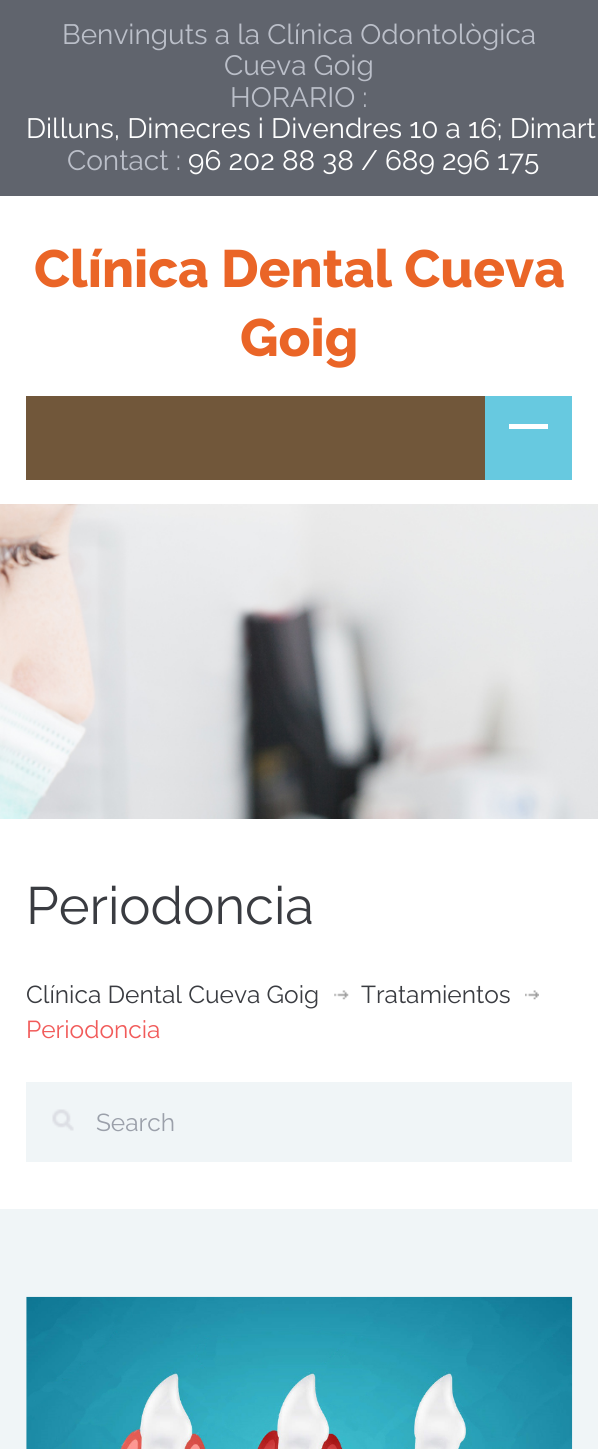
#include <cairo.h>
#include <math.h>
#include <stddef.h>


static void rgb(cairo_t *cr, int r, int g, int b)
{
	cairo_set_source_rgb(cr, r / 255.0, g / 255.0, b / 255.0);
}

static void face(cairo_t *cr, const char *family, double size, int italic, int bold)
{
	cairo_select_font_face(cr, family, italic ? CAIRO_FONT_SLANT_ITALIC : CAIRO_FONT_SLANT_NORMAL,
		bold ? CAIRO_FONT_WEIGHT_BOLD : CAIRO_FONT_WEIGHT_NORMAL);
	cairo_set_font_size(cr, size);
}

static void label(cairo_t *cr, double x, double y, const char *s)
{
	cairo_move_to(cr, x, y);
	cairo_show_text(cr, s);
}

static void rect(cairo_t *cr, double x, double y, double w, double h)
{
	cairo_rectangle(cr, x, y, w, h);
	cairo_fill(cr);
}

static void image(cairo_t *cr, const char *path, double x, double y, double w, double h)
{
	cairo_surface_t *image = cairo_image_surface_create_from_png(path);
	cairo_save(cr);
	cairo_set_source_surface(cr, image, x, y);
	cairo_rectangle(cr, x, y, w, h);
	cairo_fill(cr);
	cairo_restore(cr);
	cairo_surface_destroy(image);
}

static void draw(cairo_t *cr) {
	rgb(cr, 240, 245, 247);
	cairo_paint(cr);
	rgb(cr, 96, 100, 109);
	rect(cr, 0, 0, 598, 196);
	face(cr, "Raleway", 28, 0, 0);
	rgb(cr, 187, 191, 201);
	label(cr, 62, 44, "Benvinguts a la Clínica Odontològica");
	label(cr, 224, 75, "Cueva Goig");
	label(cr, 230, 107, "HORARIO :");
	rgb(cr, 254, 254, 254);
	label(cr, 26, 138, "Dilluns, Dimecres i Divendres 10 a 16; Dimart");
	rgb(cr, 187, 191, 201);
	label(cr, 67, 170, "Contact :");
	rgb(cr, 254, 254, 254);
	label(cr, 188, 170, "96 202 88 38 / 689 296 175");
	rgb(cr, 255, 255, 255);
	rect(cr, 0, 196, 598, 308);
	face(cr, "Raleway ExtraBold", 52.5, 0, 0);
	rgb(cr, 234, 101, 39);
	label(cr, 34, 287, "Clínica Dental Cueva");
	label(cr, 240, 356, "Goig");
	rgb(cr, 113, 87, 58);
	rect(cr, 26, 396, 459, 84);
	rgb(cr, 103, 201, 224);
	rect(cr, 485, 396, 87, 84);
	rgb(cr, 255, 255, 255);
	rect(cr, 509, 424, 39, 5);
	image(cr, "image0.png", 0, 504, 598, 315);
	rect(cr, 0, 819, 598, 390);
	face(cr, "Raleway", 52.5, 0, 0);
	rgb(cr, 58, 60, 65);
	label(cr, 26, 924, "Periodoncia");
	face(cr, "Raleway", 24.5, 0, 0);
	label(cr, 26, 1003, "Clínica Dental Cueva Goig");
	image(cr, "image1.png", 334, 990, 15, 10);
	label(cr, 361, 1003, "Tratamientos");
	image(cr, "image2.png", 525, 990, 14, 10);
	rgb(cr, 241, 91, 90);
	label(cr, 26, 1038, "Periodoncia");
	rgb(cr, 240, 245, 247);
	rect(cr, 26, 1082, 546, 80);
	image(cr, "image3.png", 52, 1109, 22, 22);
	rgb(cr, 155, 160, 170);
	label(cr, 96, 1131, "Search");
	image(cr, "image4.png", 26, 1296, 547, 153);
}

int main(void) {
	cairo_surface_t *surface = cairo_image_surface_create(CAIRO_FORMAT_RGB24, 598, 1449);
	cairo_t *cr = cairo_create(surface);
	cairo_font_options_t *options = cairo_font_options_create();
	cairo_font_options_set_hint_metrics(options, CAIRO_HINT_METRICS_OFF);
	cairo_font_options_set_hint_style(options, CAIRO_HINT_STYLE_NONE);
	cairo_set_font_options(cr, options);
	cairo_set_miter_limit(cr, 4);
	draw(cr);
	cairo_surface_write_to_png(surface, "render.png");
	cairo_font_options_destroy(options);
	cairo_destroy(cr);
	cairo_surface_destroy(surface);
	return 0;
}
